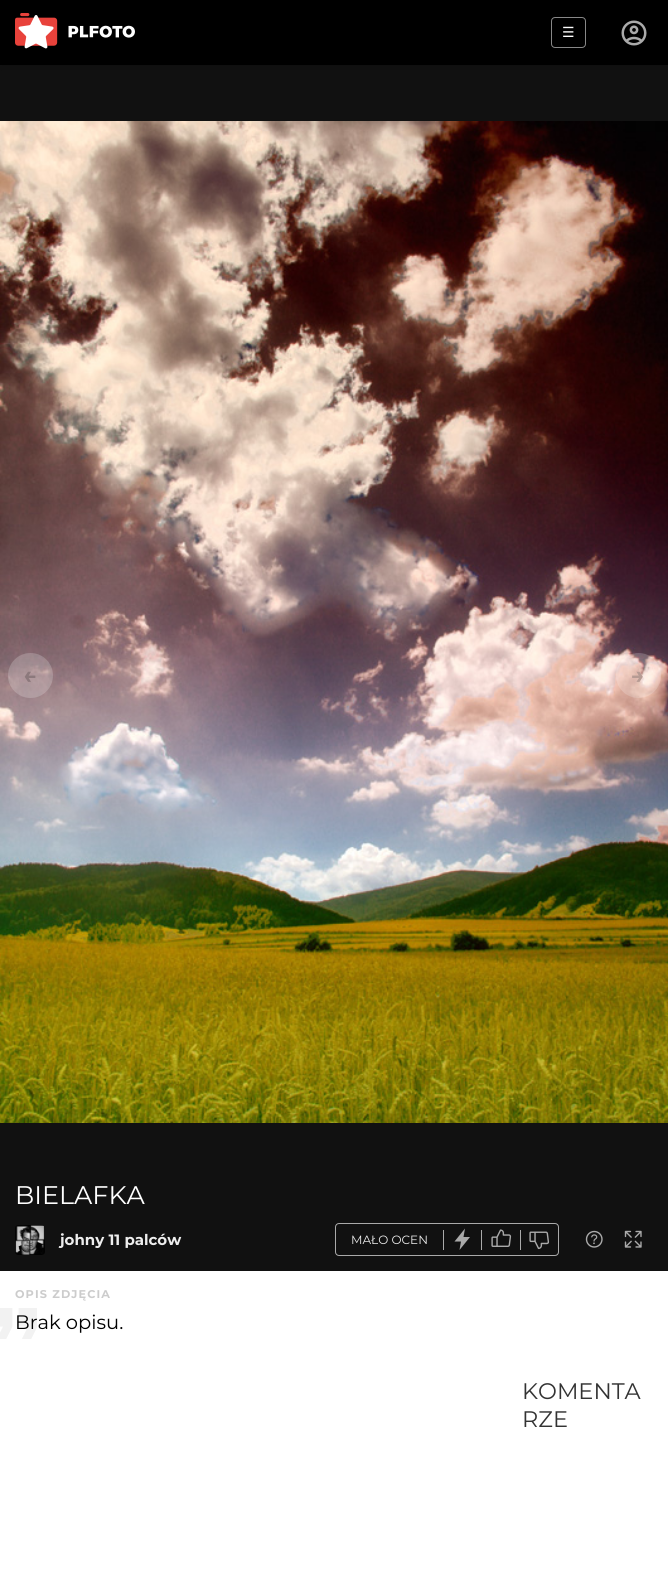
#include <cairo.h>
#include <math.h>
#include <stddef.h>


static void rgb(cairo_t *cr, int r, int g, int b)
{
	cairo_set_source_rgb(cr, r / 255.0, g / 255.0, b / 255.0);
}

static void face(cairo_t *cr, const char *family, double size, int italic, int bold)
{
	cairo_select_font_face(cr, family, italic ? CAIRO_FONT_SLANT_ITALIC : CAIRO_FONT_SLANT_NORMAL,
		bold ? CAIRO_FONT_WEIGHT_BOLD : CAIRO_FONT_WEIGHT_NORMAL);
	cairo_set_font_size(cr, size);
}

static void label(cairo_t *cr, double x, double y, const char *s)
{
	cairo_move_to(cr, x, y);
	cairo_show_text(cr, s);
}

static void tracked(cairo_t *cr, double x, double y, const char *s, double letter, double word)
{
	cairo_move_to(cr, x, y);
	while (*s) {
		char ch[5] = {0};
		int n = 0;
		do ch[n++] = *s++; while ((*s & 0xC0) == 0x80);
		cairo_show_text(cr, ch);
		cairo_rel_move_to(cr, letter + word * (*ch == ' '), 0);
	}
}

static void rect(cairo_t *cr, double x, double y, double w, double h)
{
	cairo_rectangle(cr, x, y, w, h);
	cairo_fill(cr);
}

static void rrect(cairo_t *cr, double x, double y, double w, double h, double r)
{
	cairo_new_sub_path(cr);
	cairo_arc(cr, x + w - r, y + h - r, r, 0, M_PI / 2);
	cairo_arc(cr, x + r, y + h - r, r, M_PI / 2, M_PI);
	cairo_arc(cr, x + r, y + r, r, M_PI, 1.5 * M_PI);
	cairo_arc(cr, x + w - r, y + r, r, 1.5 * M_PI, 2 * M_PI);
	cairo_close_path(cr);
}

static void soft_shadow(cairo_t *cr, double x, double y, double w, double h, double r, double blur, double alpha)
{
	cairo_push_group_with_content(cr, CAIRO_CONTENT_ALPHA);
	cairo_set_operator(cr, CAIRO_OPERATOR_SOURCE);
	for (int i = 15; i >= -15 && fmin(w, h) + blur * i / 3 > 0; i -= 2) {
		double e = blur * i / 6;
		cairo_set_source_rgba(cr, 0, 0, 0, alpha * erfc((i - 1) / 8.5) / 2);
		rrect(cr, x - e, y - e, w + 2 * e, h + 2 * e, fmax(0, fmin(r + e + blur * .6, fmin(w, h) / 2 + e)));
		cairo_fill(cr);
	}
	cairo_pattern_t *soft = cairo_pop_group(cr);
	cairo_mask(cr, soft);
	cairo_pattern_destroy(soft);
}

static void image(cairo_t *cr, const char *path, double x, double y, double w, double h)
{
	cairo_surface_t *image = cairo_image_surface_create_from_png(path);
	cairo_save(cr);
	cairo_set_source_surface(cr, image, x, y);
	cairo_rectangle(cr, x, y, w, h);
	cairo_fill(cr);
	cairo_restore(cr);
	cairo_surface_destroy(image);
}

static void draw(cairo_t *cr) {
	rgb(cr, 255, 255, 255);
	cairo_paint(cr);
	rgb(cr, 17, 17, 17);
	rect(cr, 0, 65, 668, 1206);
	rgb(cr, 0, 0, 0);
	soft_shadow(cr, 0, 3, 668, 65, 0, 3.5, 0.13);
	rgb(cr, 0, 0, 0);
	rect(cr, 0, 0, 668, 65);
	image(cr, "image0.png", 15, 13, 120, 36);
	rrect(cr, 551.5, 17.5, 34, 30, 3.5);
	rgb(cr, 136, 136, 136);
	cairo_set_line_width(cr, 1);
	cairo_stroke(cr);
	face(cr, "DejaVu Sans", 14, 0, 0);
	rgb(cr, 255, 255, 255);
	label(cr, 562, 37, "☰");
	image(cr, "image1.png", 621, 20, 26, 26);
	image(cr, "image2.png", 0, 121, 668, 1002);
	cairo_set_source_rgba(cr, 1, 1, 1, 0.2);
	cairo_arc(cr, 30.5, 675.5, 22.5, 0, 2 * M_PI);
	cairo_fill(cr);
	face(cr, "Montserrat", 22.5, 0, 1);
	rgb(cr, 140, 121, 124);
	label(cr, 23, 683, "←");
	cairo_set_source_rgba(cr, 1, 1, 1, 0.2);
	cairo_new_path(cr);
	cairo_arc(cr, 638.5, 675.5, 22.5, 0, 2 * M_PI);
	cairo_fill(cr);
	rgb(cr, 182, 155, 147);
	label(cr, 631, 683, "→");
	face(cr, "Montserrat", 25.5, 0, 0);
	rgb(cr, 255, 255, 255);
	label(cr, 15, 1204, "BIELAFKA");
	image(cr, "image3.png", 15, 1225, 30, 30);
	face(cr, "Montserrat", 15, 0, 1);
	rgb(cr, 238, 238, 238);
	label(cr, 60, 1245, "johny 11 palców");
	rrect(cr, 335.5, 1223.5, 223, 32, 3.5);
	rgb(cr, 170, 170, 170);
	cairo_stroke(cr);
	face(cr, "Montserrat", 12, 0, 0);
	rgb(cr, 238, 238, 238);
	label(cr, 351, 1244, "MAŁO OCEN");
	rgb(cr, 170, 170, 170);
	rect(cr, 443, 1230, 1, 20);
	cairo_new_path(cr);
	cairo_move_to(cr, 470, 1237);
	cairo_line_to(cr, 463.5, 1237);
	cairo_line_to(cr, 465, 1228.5);
	cairo_line_to(cr, 454.5, 1241.5);
	cairo_line_to(cr, 461, 1241.5);
	cairo_line_to(cr, 459.5, 1250);
	cairo_close_path(cr);
	cairo_fill(cr);
	rect(cr, 481, 1230, 1, 20);
	image(cr, "image4.png", 491, 1229, 21, 18);
	rect(cr, 520, 1230, 1, 20);
	image(cr, "image5.png", 529, 1231, 21, 19);
	image(cr, "image6.png", 585, 1230, 18, 18);
	image(cr, "image7.png", 624, 1230, 18, 18);
	face(cr, "Montserrat", 11.25, 0, 1);
	rgb(cr, 204, 204, 204);
	tracked(cr, 15, 1298, "OPIS ZDJĘCIA", 1.1, 0);
	face(cr, "Montserrat", 19.5, 0, 0);
	rgb(cr, 0, 0, 0);
	label(cr, 15, 1329, "Brak opisu.");
	image(cr, "image8.png", 0, 1308, 37, 31);
	face(cr, "Montserrat", 22.5, 0, 0);
	rgb(cr, 51, 51, 51);
	label(cr, 522, 1399, "KOMENTA");
	label(cr, 522, 1427, "RZE");
}

int main(void) {
	cairo_surface_t *surface = cairo_image_surface_create(CAIRO_FORMAT_RGB24, 668, 1591);
	cairo_t *cr = cairo_create(surface);
	cairo_font_options_t *options = cairo_font_options_create();
	cairo_font_options_set_hint_metrics(options, CAIRO_HINT_METRICS_OFF);
	cairo_font_options_set_hint_style(options, CAIRO_HINT_STYLE_NONE);
	cairo_set_font_options(cr, options);
	cairo_set_miter_limit(cr, 4);
	draw(cr);
	cairo_surface_write_to_png(surface, "render.png");
	cairo_font_options_destroy(options);
	cairo_destroy(cr);
	cairo_surface_destroy(surface);
	return 0;
}
